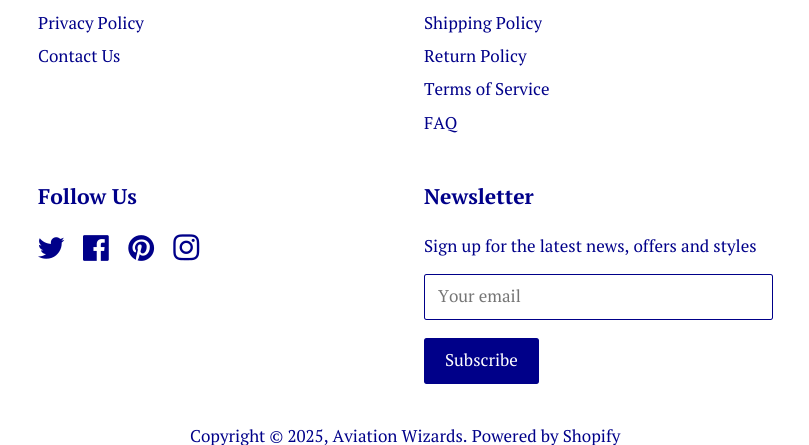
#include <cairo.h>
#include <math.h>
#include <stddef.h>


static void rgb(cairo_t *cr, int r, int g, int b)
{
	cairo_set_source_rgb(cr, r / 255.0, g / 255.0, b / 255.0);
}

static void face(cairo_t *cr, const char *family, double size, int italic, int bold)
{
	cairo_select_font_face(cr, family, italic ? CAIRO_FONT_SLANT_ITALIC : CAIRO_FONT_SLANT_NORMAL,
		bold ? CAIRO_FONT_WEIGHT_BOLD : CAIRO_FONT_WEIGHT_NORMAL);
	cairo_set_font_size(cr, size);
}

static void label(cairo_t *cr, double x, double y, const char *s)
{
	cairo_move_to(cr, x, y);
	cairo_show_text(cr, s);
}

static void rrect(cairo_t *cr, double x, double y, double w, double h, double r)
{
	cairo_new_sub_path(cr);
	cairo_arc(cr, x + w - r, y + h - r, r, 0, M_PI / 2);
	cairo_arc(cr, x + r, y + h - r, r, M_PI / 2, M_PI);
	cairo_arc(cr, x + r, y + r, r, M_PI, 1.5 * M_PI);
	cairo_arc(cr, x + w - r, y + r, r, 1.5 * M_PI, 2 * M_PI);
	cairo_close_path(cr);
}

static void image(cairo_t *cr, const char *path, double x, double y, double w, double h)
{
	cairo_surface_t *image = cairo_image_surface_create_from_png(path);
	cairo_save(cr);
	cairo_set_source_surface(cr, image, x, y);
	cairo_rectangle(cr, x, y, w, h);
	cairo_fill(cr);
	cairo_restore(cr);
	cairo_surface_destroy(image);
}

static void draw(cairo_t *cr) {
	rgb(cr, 255, 255, 255);
	cairo_paint(cr);
	face(cr, "PT Serif", 17, 0, 0);
	rgb(cr, 0, 0, 137);
	label(cr, 38, 29, "Privacy Policy");
	label(cr, 38, 62, "Contact Us");
	label(cr, 424, 29, "Shipping Policy");
	label(cr, 424, 62, "Return Policy");
	label(cr, 424, 95, "Terms of Service");
	label(cr, 424, 129, "FAQ");
	face(cr, "PT Serif", 21.25, 0, 1);
	label(cr, 38, 204, "Follow Us");
	image(cr, "image0.png", 38, 237, 27, 22);
	image(cr, "image1.png", 83, 235, 26, 26);
	image(cr, "image2.png", 128, 235, 27, 26);
	image(cr, "image3.png", 173, 234, 27, 27);
	label(cr, 424, 204, "Newsletter");
	face(cr, "PT Serif", 17, 0, 0);
	label(cr, 424, 252, "Sign up for the latest news, offers and styles");
	rrect(cr, 424.5, 274.5, 348, 45, 2);
	cairo_set_line_width(cr, 1);
	cairo_stroke(cr);
	rgb(cr, 117, 117, 117);
	label(cr, 438, 302, "Your email");
	rgb(cr, 0, 0, 137);
	rrect(cr, 424, 338, 115, 46, 2.5);
	cairo_fill(cr);
	rgb(cr, 255, 255, 255);
	label(cr, 445, 366, "Subscribe");
	rgb(cr, 0, 0, 137);
	label(cr, 190, 442, "Copyright © 2025, Aviation Wizards. Powered by Shopify");
}

int main(void) {
	cairo_surface_t *surface = cairo_image_surface_create(CAIRO_FORMAT_RGB24, 809, 445);
	cairo_t *cr = cairo_create(surface);
	cairo_font_options_t *options = cairo_font_options_create();
	cairo_font_options_set_hint_metrics(options, CAIRO_HINT_METRICS_OFF);
	cairo_font_options_set_hint_style(options, CAIRO_HINT_STYLE_NONE);
	cairo_set_font_options(cr, options);
	cairo_set_miter_limit(cr, 4);
	draw(cr);
	cairo_surface_write_to_png(surface, "render.png");
	cairo_font_options_destroy(options);
	cairo_destroy(cr);
	cairo_surface_destroy(surface);
	return 0;
}
